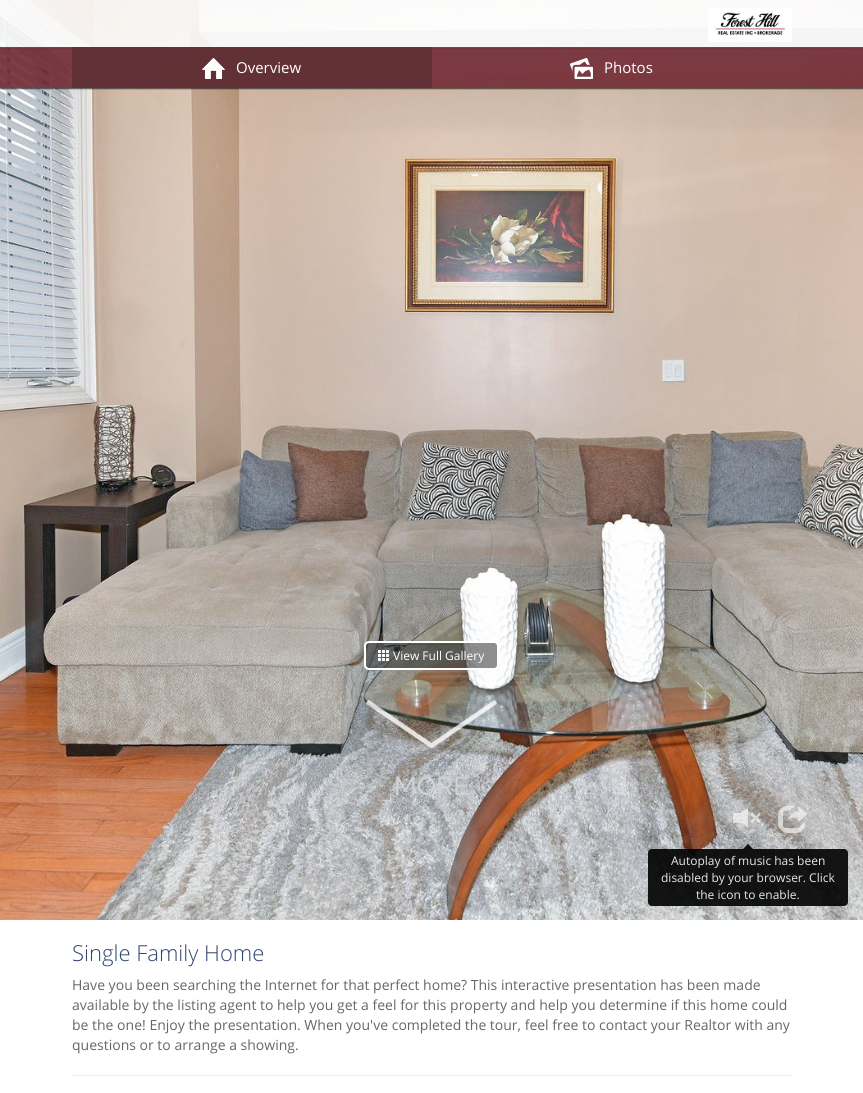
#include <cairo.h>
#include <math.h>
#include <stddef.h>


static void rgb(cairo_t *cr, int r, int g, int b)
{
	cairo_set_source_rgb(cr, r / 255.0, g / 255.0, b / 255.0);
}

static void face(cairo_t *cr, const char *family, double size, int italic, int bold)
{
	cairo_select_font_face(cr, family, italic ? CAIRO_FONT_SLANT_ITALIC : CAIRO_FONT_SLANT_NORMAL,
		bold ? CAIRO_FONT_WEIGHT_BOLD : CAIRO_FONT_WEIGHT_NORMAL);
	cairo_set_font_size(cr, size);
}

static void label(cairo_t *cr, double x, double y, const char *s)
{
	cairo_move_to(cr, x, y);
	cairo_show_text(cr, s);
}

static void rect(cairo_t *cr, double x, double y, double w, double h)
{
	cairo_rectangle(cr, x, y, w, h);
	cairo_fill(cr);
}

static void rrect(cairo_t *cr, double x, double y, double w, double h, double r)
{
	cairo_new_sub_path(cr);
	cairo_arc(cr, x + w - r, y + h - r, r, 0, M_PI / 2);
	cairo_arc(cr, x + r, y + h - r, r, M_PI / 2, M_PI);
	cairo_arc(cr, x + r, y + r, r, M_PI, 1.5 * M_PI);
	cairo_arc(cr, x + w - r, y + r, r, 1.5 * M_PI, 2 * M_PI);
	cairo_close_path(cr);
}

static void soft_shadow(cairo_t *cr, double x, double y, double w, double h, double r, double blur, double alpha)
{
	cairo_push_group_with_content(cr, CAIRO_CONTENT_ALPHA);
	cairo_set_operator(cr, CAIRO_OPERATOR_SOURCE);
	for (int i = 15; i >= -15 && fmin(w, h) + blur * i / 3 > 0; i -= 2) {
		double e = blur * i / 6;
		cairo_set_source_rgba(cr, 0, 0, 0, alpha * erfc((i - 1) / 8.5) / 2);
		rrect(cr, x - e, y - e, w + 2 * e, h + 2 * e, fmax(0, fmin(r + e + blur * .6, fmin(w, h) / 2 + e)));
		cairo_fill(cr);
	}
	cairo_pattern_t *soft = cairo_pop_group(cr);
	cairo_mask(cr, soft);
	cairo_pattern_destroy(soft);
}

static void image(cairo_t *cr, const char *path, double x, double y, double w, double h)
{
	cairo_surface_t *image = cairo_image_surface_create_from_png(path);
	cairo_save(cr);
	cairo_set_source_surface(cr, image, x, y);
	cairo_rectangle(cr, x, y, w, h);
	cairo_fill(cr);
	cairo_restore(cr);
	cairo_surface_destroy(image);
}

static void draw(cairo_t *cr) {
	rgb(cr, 255, 255, 255);
	cairo_paint(cr);
	image(cr, "image3.png", 0, 0, 863, 920);
	cairo_save(cr);
	cairo_rectangle(cr, 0, 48, 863, 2);
	cairo_clip(cr);
	rgb(cr, 0, 0, 0);
	soft_shadow(cr, 0, 1, 863, 48, 0, 0.5, 0.3);
	cairo_restore(cr);
	cairo_set_source_rgba(cr, 1, 1, 1, 0.85);
	rect(cr, 0, 0, 863, 48);
	image(cr, "image0.png", 708, 8, 84, 34);
	cairo_save(cr);
	cairo_rectangle(cr, 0, 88, 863, 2);
	cairo_clip(cr);
	rgb(cr, 0, 0, 0);
	soft_shadow(cr, 0, 48, 863, 41, 0, 0.5, 0.6);
	cairo_restore(cr);
	cairo_set_source_rgba(cr, 0.451, 0.173, 0.208, 0.9);
	rect(cr, 0, 47, 863, 41);
	cairo_set_source_rgba(cr, 0.361, 0.184, 0.204, 0.8);
	rect(cr, 72, 47, 360, 41);
	image(cr, "image1.png", 202, 58, 23, 21);
	face(cr, "Open Sans", 15, 0, 0);
	rgb(cr, 255, 255, 255);
	label(cr, 236, 73, "Overview");
	image(cr, "image2.png", 570, 58, 23, 21);
	label(cr, 604, 73, "Photos");
	cairo_set_source_rgba(cr, 0.196, 0.196, 0.196, 0.55);
	rrect(cr, 365, 642, 133, 27, 4);
	cairo_fill_preserve(cr);
	rgb(cr, 255, 255, 255);
	cairo_stroke(cr);
	image(cr, "image4.png", 378, 650, 11, 11);
	face(cr, "Open Sans", 12, 0, 0);
	label(cr, 393, 660, "View Full Gallery");
	image(cr, "image5.png", 366, 700, 131, 48);
	face(cr, "Raleway Thin", 26, 0, 0);
	rgb(cr, 208, 209, 212);
	label(cr, 394, 795, "MORE");
	image(cr, "image6.png", 733, 808, 28, 20);
	image(cr, "image7.png", 778, 805, 29, 28);
	cairo_set_source_rgba(cr, 0, 0, 0, 0.9);
	cairo_new_path(cr);
	cairo_move_to(cr, 753, 849);
	cairo_line_to(cr, 743, 849);
	cairo_line_to(cr, 748, 844);
	cairo_close_path(cr);
	cairo_fill(cr);
	rrect(cr, 648, 849, 200, 57, 4);
	cairo_fill(cr);
	face(cr, "Open Sans", 12, 0, 0);
	rgb(cr, 231, 231, 231);
	label(cr, 671, 865, "Autoplay of music has been");
	label(cr, 661, 882, "disabled by your browser. Click");
	label(cr, 696, 899, "the icon to enable.");
	face(cr, "Open Sans Light", 22, 0, 0);
	rgb(cr, 47, 69, 109);
	label(cr, 72, 961, "Single Family Home");
	face(cr, "Open Sans", 14, 0, 0);
	rgb(cr, 102, 103, 102);
	label(cr, 72, 990, "Have you been searching the Internet for that perfect home? This interactive presentation has been made");
	label(cr, 72, 1010, "available by the listing agent to help you get a feel for this property and help you determine if this home could");
	label(cr, 72, 1030, "be the one! Enjoy the presentation. When you've completed the tour, feel free to contact your Realtor with any");
	label(cr, 72, 1050, "questions or to arrange a showing.");
	rgb(cr, 238, 238, 238);
	rect(cr, 72, 1075, 720, 1);
}

int main(void) {
	cairo_surface_t *surface = cairo_image_surface_create(CAIRO_FORMAT_RGB24, 863, 1093);
	cairo_t *cr = cairo_create(surface);
	cairo_font_options_t *options = cairo_font_options_create();
	cairo_font_options_set_hint_metrics(options, CAIRO_HINT_METRICS_OFF);
	cairo_font_options_set_hint_style(options, CAIRO_HINT_STYLE_NONE);
	cairo_set_font_options(cr, options);
	cairo_set_miter_limit(cr, 4);
	draw(cr);
	cairo_surface_write_to_png(surface, "render.png");
	cairo_font_options_destroy(options);
	cairo_destroy(cr);
	cairo_surface_destroy(surface);
	return 0;
}
